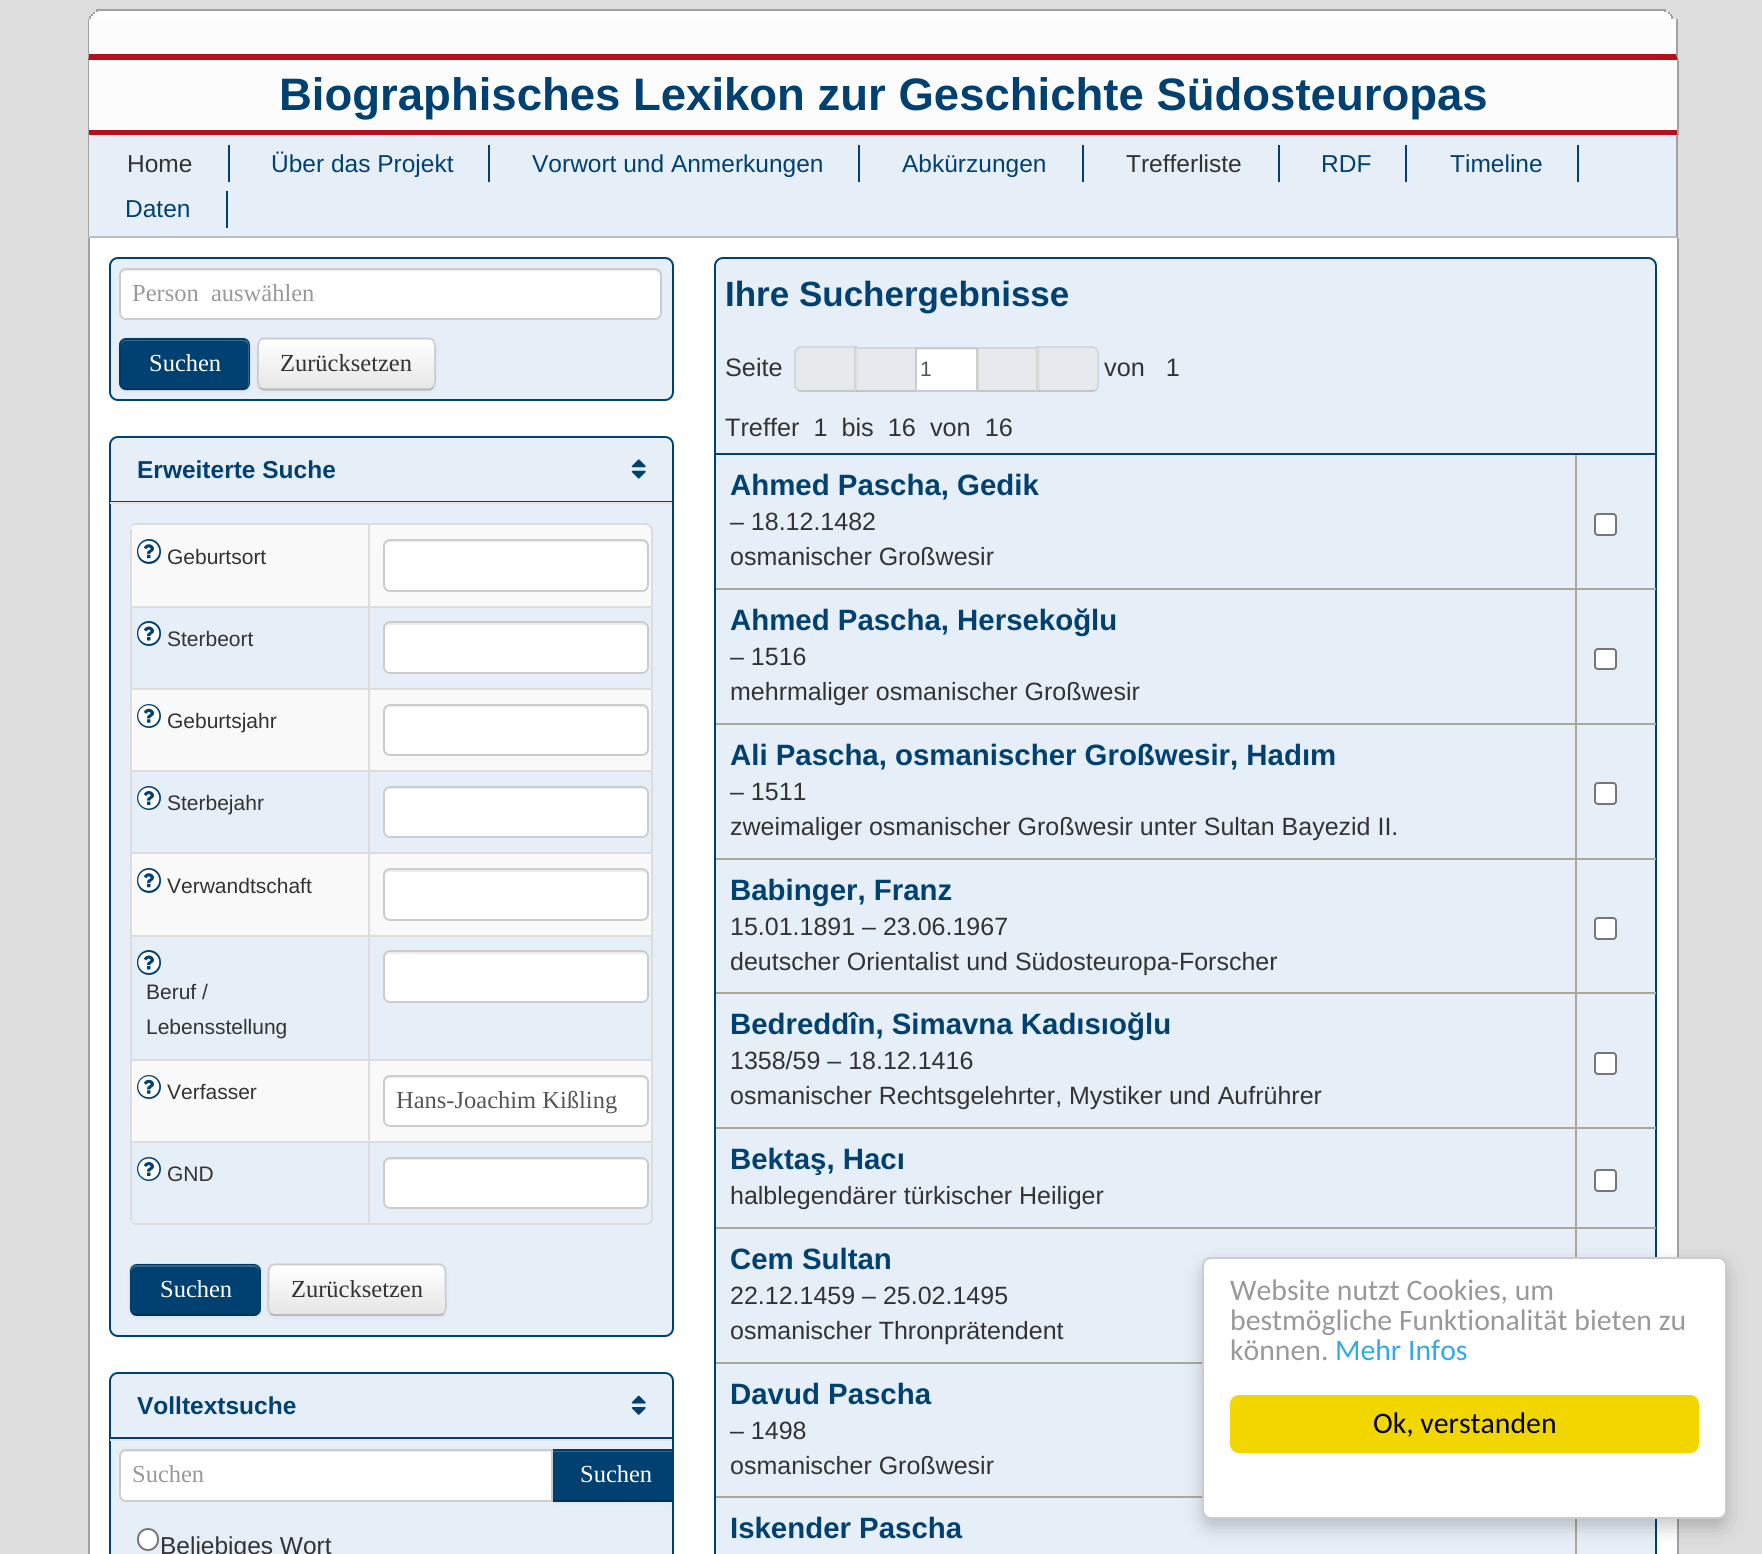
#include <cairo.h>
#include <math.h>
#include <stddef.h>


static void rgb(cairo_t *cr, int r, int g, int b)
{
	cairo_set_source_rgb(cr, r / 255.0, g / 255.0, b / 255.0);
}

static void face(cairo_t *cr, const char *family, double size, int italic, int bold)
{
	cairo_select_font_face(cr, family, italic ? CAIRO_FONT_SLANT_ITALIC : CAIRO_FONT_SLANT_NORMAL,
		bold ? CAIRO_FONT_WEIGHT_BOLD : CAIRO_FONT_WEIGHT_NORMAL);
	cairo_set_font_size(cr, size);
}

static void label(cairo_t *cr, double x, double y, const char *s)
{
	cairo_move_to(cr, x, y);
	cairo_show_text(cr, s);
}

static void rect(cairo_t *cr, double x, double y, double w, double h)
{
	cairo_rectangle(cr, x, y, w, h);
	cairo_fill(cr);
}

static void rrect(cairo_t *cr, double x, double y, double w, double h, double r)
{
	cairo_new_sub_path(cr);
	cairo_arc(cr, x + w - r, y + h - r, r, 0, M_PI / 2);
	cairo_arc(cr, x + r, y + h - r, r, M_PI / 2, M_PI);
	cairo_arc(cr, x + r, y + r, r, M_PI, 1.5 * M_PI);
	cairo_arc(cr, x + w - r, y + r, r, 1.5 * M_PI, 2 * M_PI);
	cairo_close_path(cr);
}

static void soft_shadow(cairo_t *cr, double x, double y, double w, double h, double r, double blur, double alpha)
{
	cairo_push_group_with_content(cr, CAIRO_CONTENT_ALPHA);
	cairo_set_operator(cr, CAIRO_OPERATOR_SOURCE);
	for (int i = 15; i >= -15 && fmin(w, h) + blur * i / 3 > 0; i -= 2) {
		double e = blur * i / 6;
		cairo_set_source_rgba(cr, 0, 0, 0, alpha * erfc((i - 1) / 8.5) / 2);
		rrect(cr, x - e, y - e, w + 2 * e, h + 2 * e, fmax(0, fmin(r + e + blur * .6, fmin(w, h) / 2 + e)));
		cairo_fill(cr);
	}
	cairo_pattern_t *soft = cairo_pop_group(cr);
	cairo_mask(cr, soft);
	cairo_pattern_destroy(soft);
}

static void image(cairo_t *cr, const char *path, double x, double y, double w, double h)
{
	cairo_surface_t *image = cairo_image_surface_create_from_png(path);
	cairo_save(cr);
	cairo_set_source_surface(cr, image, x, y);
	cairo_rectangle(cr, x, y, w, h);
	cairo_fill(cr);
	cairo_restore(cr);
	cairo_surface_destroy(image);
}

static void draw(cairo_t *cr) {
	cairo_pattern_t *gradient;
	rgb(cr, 221, 221, 221);
	cairo_paint(cr);
	rgb(cr, 255, 255, 255);
	rect(cr, 96, 11, 1570, 1);
	rgb(cr, 161, 161, 161);
	rect(cr, 96, 9, 1570, 2);
	rect(cr, 1664, 9, 2, 4);
	rect(cr, 96, 9, 2, 4);
	rgb(cr, 255, 255, 255);
	rect(cr, 93, 12, 1577, 2);
	rgb(cr, 161, 161, 161);
	rect(cr, 1668, 12, 2, 2);
	rect(cr, 93, 12, 2, 2);
	rgb(cr, 255, 255, 255);
	rect(cr, 91, 14, 1580, 2);
	rgb(cr, 161, 161, 161);
	rect(cr, 1670, 14, 2, 2);
	rect(cr, 91, 14, 2, 2);
	rgb(cr, 255, 255, 255);
	rect(cr, 89, 16, 1584, 3);
	rgb(cr, 161, 161, 161);
	rect(cr, 1671, 16, 2, 4);
	rect(cr, 89, 16, 2, 4);
	rgb(cr, 252, 252, 252);
	rect(cr, 88, 19, 1590, 41);
	rgb(cr, 161, 161, 161);
	cairo_new_path(cr);
	cairo_move_to(cr, 1678, 19);
	cairo_line_to(cr, 1678, 60);
	cairo_line_to(cr, 1676, 54);
	cairo_line_to(cr, 1676, 19);
	cairo_close_path(cr);
	cairo_fill(cr);
	rgb(cr, 182, 16, 29);
	cairo_new_path(cr);
	cairo_move_to(cr, 1678, 60);
	cairo_line_to(cr, 88, 60);
	cairo_line_to(cr, 89, 54);
	cairo_line_to(cr, 1676, 54);
	cairo_close_path(cr);
	cairo_fill(cr);
	rgb(cr, 161, 161, 161);
	cairo_new_path(cr);
	cairo_move_to(cr, 88, 60);
	cairo_line_to(cr, 88, 19);
	cairo_line_to(cr, 89, 19);
	cairo_line_to(cr, 89, 54);
	cairo_close_path(cr);
	cairo_fill(cr);
	rect(cr, 1677, 60, 2, 75);
	rect(cr, 88, 60, 1, 75);
	rgb(cr, 252, 252, 252);
	rect(cr, 89, 60, 1588, 70);
	rgb(cr, 182, 16, 29);
	rect(cr, 89, 130, 1588, 5);
	face(cr, "Liberation Sans", 45.5, 0, 1);
	rgb(cr, 0, 65, 113);
	label(cr, 279, 110, "Biographisches Lexikon zur Geschichte Südosteuropas");
	rgb(cr, 230, 238, 248);
	rect(cr, 88, 135, 1590, 103);
	rgb(cr, 161, 161, 161);
	cairo_new_path(cr);
	cairo_move_to(cr, 1678, 135);
	cairo_line_to(cr, 1678, 238);
	cairo_line_to(cr, 1676, 236);
	cairo_line_to(cr, 1676, 135);
	cairo_close_path(cr);
	cairo_fill(cr);
	cairo_set_source_rgba(cr, 0, 0, 0, 0.2);
	cairo_new_path(cr);
	cairo_move_to(cr, 1678, 238);
	cairo_line_to(cr, 88, 238);
	cairo_line_to(cr, 89, 236);
	cairo_line_to(cr, 1676, 236);
	cairo_close_path(cr);
	cairo_fill(cr);
	rgb(cr, 161, 161, 161);
	cairo_new_path(cr);
	cairo_move_to(cr, 88, 238);
	cairo_line_to(cr, 88, 135);
	cairo_line_to(cr, 89, 135);
	cairo_line_to(cr, 89, 236);
	cairo_close_path(cr);
	cairo_fill(cr);
	rgb(cr, 0, 65, 113);
	rect(cr, 228, 145, 2, 37);
	face(cr, "Liberation Sans", 24.5, 0, 0);
	rgb(cr, 51, 51, 51);
	label(cr, 127, 172, "Home");
	rgb(cr, 0, 65, 113);
	rect(cr, 488, 145, 2, 37);
	label(cr, 271, 172, "Über das Projekt");
	rect(cr, 858, 145, 2, 37);
	label(cr, 532, 172, "Vorwort und Anmerkungen");
	rect(cr, 1082, 145, 2, 37);
	label(cr, 902, 172, "Abkürzungen");
	rect(cr, 1278, 145, 2, 37);
	rgb(cr, 51, 51, 51);
	label(cr, 1126, 172, "Trefferliste");
	rgb(cr, 0, 65, 113);
	rect(cr, 1405, 145, 2, 37);
	label(cr, 1321, 172, "RDF");
	rect(cr, 1577, 145, 2, 37);
	label(cr, 1450, 172, "Timeline");
	rect(cr, 226, 191, 2, 37);
	label(cr, 125, 217, "Daten");
	rgb(cr, 255, 255, 255);
	rect(cr, 90, 238, 1587, 1316);
	rgb(cr, 161, 161, 161);
	rect(cr, 1677, 238, 2, 1316);
	rect(cr, 88, 238, 2, 1316);
	rgb(cr, 230, 238, 248);
	rrect(cr, 110, 258, 563, 142, 8);
	cairo_fill_preserve(cr);
	rgb(cr, 0, 65, 113);
	cairo_stroke(cr);
	rgb(cr, 255, 255, 255);
	rrect(cr, 119, 268, 543, 52, 7);
	cairo_fill(cr);
	rgb(cr, 236, 236, 236);
	cairo_new_path(cr);
	cairo_move_to(cr, 126, 271);
	cairo_line_to(cr, 654, 271);
	cairo_curve_to(cr, 657, 271, 660, 274, 660, 276);
	cairo_curve_to(cr, 660, 273, 658, 270, 655, 270);
	cairo_line_to(cr, 126, 270);
	cairo_curve_to(cr, 123, 270, 121, 273, 121, 276);
	cairo_curve_to(cr, 121, 274, 123, 271, 126, 271);
	cairo_close_path(cr);
	cairo_fill(cr);
	rrect(cr, 120, 269, 541, 50, 6);
	rgb(cr, 204, 204, 204);
	cairo_stroke(cr);
	face(cr, "Liberation Serif", 24.5, 0, 0);
	rgb(cr, 153, 153, 153);
	label(cr, 132, 301, "Person  auswählen");
	rgb(cr, 0, 0, 0);
	soft_shadow(cr, 119, 340, 131, 52, 7, 2, 0.05);
	rgb(cr, 0, 65, 113);
	rrect(cr, 119, 338, 131, 52, 7);
	cairo_fill(cr);
	rgb(cr, 51, 103, 141);
	cairo_new_path(cr);
	cairo_move_to(cr, 126, 341);
	cairo_line_to(cr, 243, 341);
	cairo_curve_to(cr, 246, 341, 248, 344, 248, 346);
	cairo_line_to(cr, 248, 385);
	cairo_line_to(cr, 247, 388);
	cairo_curve_to(cr, 248, 387, 249, 385, 249, 384);
	cairo_line_to(cr, 249, 345);
	cairo_curve_to(cr, 249, 342, 247, 340, 244, 340);
	cairo_line_to(cr, 126, 340);
	cairo_curve_to(cr, 123, 340, 121, 342, 121, 345);
	cairo_line_to(cr, 121, 346);
	cairo_curve_to(cr, 121, 344, 123, 341, 126, 341);
	cairo_close_path(cr);
	cairo_fill(cr);
	cairo_new_path(cr);
	cairo_move_to(cr, 247.5, 387.5);
	cairo_curve_to(cr, 246.5, 388.5, 245, 389.5, 243, 389.5);
	cairo_line_to(cr, 126, 389.5);
	cairo_curve_to(cr, 124.5, 389.5, 123, 388.5, 121.5, 387.5);
	cairo_set_source_rgba(cr, 0, 0, 0, 0.25);
	cairo_set_line_width(cr, 1.8);
	cairo_stroke(cr);
	cairo_new_path(cr);
	cairo_move_to(cr, 121.5, 387.5);
	cairo_curve_to(cr, 119, 385, 120, 380, 120, 377);
	cairo_line_to(cr, 120, 364);
	cairo_curve_to(cr, 120, 335, 115.5, 338.5, 145.5, 338.5);
	cairo_line_to(cr, 223.5, 338.5);
	cairo_curve_to(cr, 253.5, 338.5, 249.5, 335, 249.5, 364);
	cairo_line_to(cr, 249.5, 377);
	cairo_curve_to(cr, 249.5, 380, 250.5, 385, 247.5, 387.5);
	cairo_set_source_rgba(cr, 0, 0, 0, 0.1);
	cairo_stroke(cr);
	rgb(cr, 255, 255, 255);
	label(cr, 149, 371, "Suchen");
	rgb(cr, 0, 0, 0);
	soft_shadow(cr, 257, 340, 179, 52, 7, 2, 0.05);
	rgb(cr, 245, 245, 245);
	rrect(cr, 257, 338, 179, 52, 7);
	cairo_fill(cr);
	cairo_save(cr);
	rrect(cr, 257, 338, 179, 52, 7);
	cairo_clip(cr);
	gradient = cairo_pattern_create_linear(347, 340, 347, 389);
	cairo_pattern_add_color_stop_rgba(gradient, 0, 1, 1, 1, 1);
	cairo_pattern_add_color_stop_rgba(gradient, 1, 0.902, 0.902, 0.902, 1);
	cairo_set_source(cr, gradient);
	cairo_pattern_destroy(gradient);
	rect(cr, 257, 340, 179, 49);
	cairo_restore(cr);
	cairo_new_path(cr);
	cairo_move_to(cr, 433, 387.5);
	cairo_curve_to(cr, 432, 388.5, 430.5, 389.5, 429, 389.5);
	cairo_line_to(cr, 264, 389.5);
	cairo_curve_to(cr, 262.5, 389.5, 261, 388.5, 260, 387.5);
	rgb(cr, 179, 179, 179);
	cairo_stroke(cr);
	cairo_new_path(cr);
	cairo_move_to(cr, 260, 387.5);
	cairo_curve_to(cr, 256.5, 384, 258, 374.5, 258, 370.5);
	cairo_line_to(cr, 258, 351);
	cairo_curve_to(cr, 258, 346.5, 257.5, 338.5, 264, 338.5);
	cairo_line_to(cr, 429, 338.5);
	cairo_curve_to(cr, 435.5, 338.5, 435, 346.5, 435, 351);
	cairo_line_to(cr, 435, 370.5);
	cairo_curve_to(cr, 435, 374.5, 436.5, 384, 433, 387.5);
	rgb(cr, 204, 204, 204);
	cairo_stroke(cr);
	rgb(cr, 51, 51, 51);
	label(cr, 280, 371, "Zurücksetzen");
	rgb(cr, 230, 238, 248);
	rrect(cr, 110, 437, 563, 899, 8);
	cairo_fill_preserve(cr);
	rgb(cr, 0, 65, 113);
	cairo_set_line_width(cr, 2);
	cairo_stroke(cr);
	rect(cr, 110, 501, 562, 1);
	face(cr, "Liberation Sans", 24.5, 0, 1);
	label(cr, 137, 478, "Erweiterte Suche");
	image(cr, "image0.png", 631, 459, 15, 20);
	rgb(cr, 229, 229, 229);
	rect(cr, 110, 502, 562, 2);
	rgb(cr, 221, 221, 221);
	cairo_set_fill_rule(cr, CAIRO_FILL_RULE_EVEN_ODD);
	cairo_new_path(cr);
	cairo_move_to(cr, 136, 523);
	cairo_line_to(cr, 646, 523);
	cairo_curve_to(cr, 650, 523, 653, 526, 653, 530);
	cairo_line_to(cr, 653, 1218);
	cairo_curve_to(cr, 653, 1222, 650, 1225, 646, 1225);
	cairo_line_to(cr, 136, 1225);
	cairo_curve_to(cr, 133, 1225, 130, 1222, 130, 1218);
	cairo_line_to(cr, 130, 530);
	cairo_curve_to(cr, 130, 526, 133, 523, 136, 523);
	cairo_close_path(cr);
	cairo_move_to(cr, 136, 525);
	cairo_line_to(cr, 646, 525);
	cairo_curve_to(cr, 649, 525, 651, 527, 651, 530);
	cairo_line_to(cr, 651, 1218);
	cairo_curve_to(cr, 651, 1221, 649, 1223, 646, 1223);
	cairo_line_to(cr, 136, 1223);
	cairo_curve_to(cr, 133, 1223, 130, 1221, 130, 1218);
	cairo_line_to(cr, 130, 530);
	cairo_curve_to(cr, 130, 527, 133, 525, 136, 525);
	cairo_close_path(cr);
	cairo_fill(cr);
	rgb(cr, 249, 249, 249);
	cairo_new_path(cr);
	cairo_move_to(cr, 137, 525);
	cairo_line_to(cr, 368, 525);
	cairo_line_to(cr, 368, 606);
	cairo_line_to(cr, 130, 606);
	cairo_line_to(cr, 130, 532);
	cairo_curve_to(cr, 130, 528, 133, 525, 137, 525);
	cairo_close_path(cr);
	cairo_fill(cr);
	rgb(cr, 221, 221, 221);
	rect(cr, 130, 529, 2, 77);
	rgb(cr, 0, 65, 113);
	rrect(cr, 137, 539, 24, 25, 12);
	cairo_fill(cr);
	image(cr, "image1.png", 138, 540, 22, 22);
	face(cr, "Liberation Sans", 21, 0, 0);
	rgb(cr, 51, 51, 51);
	label(cr, 167, 564, "Geburtsort");
	rgb(cr, 249, 249, 249);
	cairo_new_path(cr);
	cairo_move_to(cr, 368, 525);
	cairo_line_to(cr, 644, 525);
	cairo_curve_to(cr, 648, 525, 651, 528, 651, 532);
	cairo_line_to(cr, 651, 606);
	cairo_line_to(cr, 368, 606);
	cairo_close_path(cr);
	cairo_fill(cr);
	rgb(cr, 221, 221, 221);
	rect(cr, 368, 525, 2, 81);
	rgb(cr, 255, 255, 255);
	rrect(cr, 383, 539, 266, 53, 7);
	cairo_fill(cr);
	rgb(cr, 236, 236, 236);
	cairo_set_fill_rule(cr, CAIRO_FILL_RULE_WINDING);
	cairo_new_path(cr);
	cairo_move_to(cr, 390, 542);
	cairo_line_to(cr, 642, 542);
	cairo_curve_to(cr, 645, 542, 648, 545, 648, 548);
	cairo_line_to(cr, 648, 546);
	cairo_curve_to(cr, 648, 543, 646, 541, 643, 541);
	cairo_line_to(cr, 390, 541);
	cairo_curve_to(cr, 387, 541, 385, 543, 385, 546);
	cairo_line_to(cr, 385, 548);
	cairo_curve_to(cr, 385, 545, 387, 542, 390, 542);
	cairo_close_path(cr);
	cairo_fill(cr);
	rrect(cr, 384, 540, 264, 51, 6);
	rgb(cr, 204, 204, 204);
	cairo_stroke(cr);
	rgb(cr, 221, 221, 221);
	rect(cr, 130, 606, 521, 2);
	rect(cr, 130, 606, 2, 82);
	rgb(cr, 0, 65, 113);
	rrect(cr, 137, 621, 24, 25, 12);
	cairo_fill(cr);
	image(cr, "image2.png", 138, 623, 22, 21);
	rgb(cr, 51, 51, 51);
	label(cr, 167, 646, "Sterbeort");
	rgb(cr, 221, 221, 221);
	rect(cr, 368, 606, 2, 82);
	rgb(cr, 255, 255, 255);
	rrect(cr, 383, 621, 266, 53, 7);
	cairo_fill(cr);
	rgb(cr, 236, 236, 236);
	cairo_new_path(cr);
	cairo_move_to(cr, 390, 625);
	cairo_line_to(cr, 642, 625);
	cairo_curve_to(cr, 645, 625, 648, 627, 648, 630);
	cairo_line_to(cr, 648, 628);
	cairo_curve_to(cr, 648, 625, 646, 623, 643, 623);
	cairo_line_to(cr, 390, 623);
	cairo_curve_to(cr, 387, 623, 385, 625, 385, 628);
	cairo_line_to(cr, 385, 630);
	cairo_curve_to(cr, 385, 627, 387, 625, 390, 625);
	cairo_close_path(cr);
	cairo_fill(cr);
	rrect(cr, 384, 622, 264, 51, 6);
	rgb(cr, 204, 204, 204);
	cairo_stroke(cr);
	rgb(cr, 249, 249, 249);
	rect(cr, 132, 690, 236, 80);
	rgb(cr, 221, 221, 221);
	rect(cr, 130, 688, 521, 2);
	rect(cr, 130, 688, 2, 82);
	rgb(cr, 0, 65, 113);
	cairo_arc(cr, 149, 716, 12, 0, 2 * M_PI);
	cairo_fill(cr);
	image(cr, "image3.png", 138, 705, 22, 22);
	rgb(cr, 51, 51, 51);
	label(cr, 167, 728, "Geburtsjahr");
	rgb(cr, 249, 249, 249);
	rect(cr, 370, 690, 281, 80);
	rgb(cr, 221, 221, 221);
	rect(cr, 368, 688, 2, 82);
	rgb(cr, 255, 255, 255);
	rrect(cr, 383, 704, 266, 52, 7);
	cairo_fill(cr);
	rgb(cr, 236, 236, 236);
	cairo_new_path(cr);
	cairo_move_to(cr, 390, 707);
	cairo_line_to(cr, 642, 707);
	cairo_curve_to(cr, 645, 707, 648, 709, 648, 712);
	cairo_line_to(cr, 648, 710);
	cairo_curve_to(cr, 648, 707, 646, 705, 643, 705);
	cairo_line_to(cr, 390, 705);
	cairo_curve_to(cr, 387, 705, 385, 707, 385, 710);
	cairo_line_to(cr, 385, 712);
	cairo_curve_to(cr, 385, 709, 387, 707, 390, 707);
	cairo_close_path(cr);
	cairo_fill(cr);
	rrect(cr, 384, 705, 264, 50, 6);
	rgb(cr, 204, 204, 204);
	cairo_stroke(cr);
	rgb(cr, 221, 221, 221);
	rect(cr, 130, 770, 521, 2);
	rect(cr, 130, 770, 2, 82);
	rgb(cr, 0, 65, 113);
	cairo_arc(cr, 149, 798, 12, 0, 2 * M_PI);
	cairo_fill(cr);
	image(cr, "image4.png", 138, 787, 22, 22);
	rgb(cr, 51, 51, 51);
	label(cr, 167, 810, "Sterbejahr");
	rgb(cr, 221, 221, 221);
	rect(cr, 368, 770, 2, 82);
	rgb(cr, 255, 255, 255);
	rrect(cr, 383, 786, 266, 52, 7);
	cairo_fill(cr);
	rgb(cr, 236, 236, 236);
	cairo_new_path(cr);
	cairo_move_to(cr, 390, 789);
	cairo_line_to(cr, 642, 789);
	cairo_curve_to(cr, 645, 789, 648, 792, 648, 794);
	cairo_curve_to(cr, 648, 791, 646, 788, 643, 788);
	cairo_line_to(cr, 390, 788);
	cairo_curve_to(cr, 387, 788, 385, 791, 385, 794);
	cairo_curve_to(cr, 385, 792, 387, 789, 390, 789);
	cairo_close_path(cr);
	cairo_fill(cr);
	rrect(cr, 384, 787, 264, 50, 6);
	rgb(cr, 204, 204, 204);
	cairo_stroke(cr);
	rgb(cr, 249, 249, 249);
	rect(cr, 132, 854, 236, 81);
	rgb(cr, 221, 221, 221);
	rect(cr, 130, 852, 521, 2);
	rect(cr, 130, 852, 2, 83);
	rgb(cr, 0, 65, 113);
	rrect(cr, 137, 868, 24, 25, 12);
	cairo_fill(cr);
	image(cr, "image1.png", 138, 869, 22, 22);
	rgb(cr, 51, 51, 51);
	label(cr, 167, 893, "Verwandtschaft");
	rgb(cr, 249, 249, 249);
	rect(cr, 370, 854, 281, 81);
	rgb(cr, 221, 221, 221);
	rect(cr, 368, 852, 2, 83);
	rgb(cr, 255, 255, 255);
	rrect(cr, 383, 868, 266, 53, 7);
	cairo_fill(cr);
	rgb(cr, 236, 236, 236);
	cairo_new_path(cr);
	cairo_move_to(cr, 390, 872);
	cairo_line_to(cr, 642, 872);
	cairo_curve_to(cr, 645, 872, 648, 874, 648, 877);
	cairo_line_to(cr, 648, 875);
	cairo_curve_to(cr, 648, 872, 646, 870, 643, 870);
	cairo_line_to(cr, 390, 870);
	cairo_curve_to(cr, 387, 870, 385, 872, 385, 875);
	cairo_line_to(cr, 385, 877);
	cairo_curve_to(cr, 385, 874, 387, 872, 390, 872);
	cairo_close_path(cr);
	cairo_fill(cr);
	rrect(cr, 384, 869, 264, 51, 6);
	rgb(cr, 204, 204, 204);
	cairo_stroke(cr);
	rgb(cr, 221, 221, 221);
	rect(cr, 130, 935, 521, 2);
	rect(cr, 130, 935, 2, 124);
	rgb(cr, 0, 65, 113);
	rrect(cr, 137, 950, 24, 25, 12);
	cairo_fill(cr);
	image(cr, "image2.png", 138, 952, 22, 21);
	rgb(cr, 51, 51, 51);
	label(cr, 146, 999, "Beruf /");
	label(cr, 146, 1034, "Lebensstellung");
	rgb(cr, 221, 221, 221);
	rect(cr, 368, 935, 2, 124);
	rgb(cr, 255, 255, 255);
	rrect(cr, 383, 950, 266, 53, 7);
	cairo_fill(cr);
	rgb(cr, 236, 236, 236);
	cairo_new_path(cr);
	cairo_move_to(cr, 390, 954);
	cairo_line_to(cr, 642, 954);
	cairo_curve_to(cr, 645, 954, 648, 956, 648, 959);
	cairo_line_to(cr, 648, 957);
	cairo_curve_to(cr, 648, 954, 646, 952, 643, 952);
	cairo_line_to(cr, 390, 952);
	cairo_curve_to(cr, 387, 952, 385, 954, 385, 957);
	cairo_line_to(cr, 385, 959);
	cairo_curve_to(cr, 385, 956, 387, 954, 390, 954);
	cairo_close_path(cr);
	cairo_fill(cr);
	rrect(cr, 384, 951, 264, 51, 6);
	rgb(cr, 204, 204, 204);
	cairo_stroke(cr);
	rgb(cr, 249, 249, 249);
	rect(cr, 132, 1061, 236, 80);
	rgb(cr, 221, 221, 221);
	rect(cr, 130, 1059, 521, 2);
	rect(cr, 130, 1059, 2, 82);
	rgb(cr, 0, 65, 113);
	cairo_arc(cr, 149, 1087, 12, 0, 2 * M_PI);
	cairo_fill(cr);
	image(cr, "image3.png", 138, 1076, 22, 22);
	rgb(cr, 51, 51, 51);
	label(cr, 167, 1099, "Verfasser");
	rgb(cr, 249, 249, 249);
	rect(cr, 370, 1061, 281, 80);
	rgb(cr, 221, 221, 221);
	rect(cr, 368, 1059, 2, 82);
	rgb(cr, 255, 255, 255);
	rrect(cr, 383, 1075, 266, 52, 7);
	cairo_fill(cr);
	rgb(cr, 236, 236, 236);
	cairo_new_path(cr);
	cairo_move_to(cr, 390, 1078);
	cairo_line_to(cr, 642, 1078);
	cairo_curve_to(cr, 645, 1078, 648, 1080, 648, 1083);
	cairo_line_to(cr, 648, 1081);
	cairo_curve_to(cr, 648, 1078, 646, 1076, 643, 1076);
	cairo_line_to(cr, 390, 1076);
	cairo_curve_to(cr, 387, 1076, 385, 1078, 385, 1081);
	cairo_line_to(cr, 385, 1083);
	cairo_curve_to(cr, 385, 1080, 387, 1078, 390, 1078);
	cairo_close_path(cr);
	cairo_fill(cr);
	rrect(cr, 384, 1076, 264, 50, 6);
	rgb(cr, 204, 204, 204);
	cairo_stroke(cr);
	face(cr, "Liberation Serif", 24.5, 0, 0);
	rgb(cr, 85, 85, 85);
	label(cr, 396, 1108, "Hans-Joachim Kißling");
	rgb(cr, 221, 221, 221);
	rect(cr, 130, 1141, 521, 2);
	rect(cr, 130, 1141, 2, 79);
	rgb(cr, 0, 65, 113);
	cairo_new_path(cr);
	cairo_arc(cr, 149, 1169, 12, 0, 2 * M_PI);
	cairo_fill(cr);
	image(cr, "image4.png", 138, 1158, 22, 22);
	face(cr, "Liberation Sans", 21, 0, 0);
	rgb(cr, 51, 51, 51);
	label(cr, 167, 1181, "GND");
	rgb(cr, 221, 221, 221);
	rect(cr, 368, 1141, 2, 82);
	rgb(cr, 255, 255, 255);
	rrect(cr, 383, 1157, 266, 52, 7);
	cairo_fill(cr);
	rgb(cr, 236, 236, 236);
	cairo_new_path(cr);
	cairo_move_to(cr, 390, 1160);
	cairo_line_to(cr, 642, 1160);
	cairo_curve_to(cr, 645, 1160, 648, 1163, 648, 1166);
	cairo_line_to(cr, 648, 1164);
	cairo_curve_to(cr, 648, 1161, 646, 1159, 643, 1159);
	cairo_line_to(cr, 390, 1159);
	cairo_curve_to(cr, 387, 1159, 385, 1161, 385, 1164);
	cairo_line_to(cr, 385, 1166);
	cairo_curve_to(cr, 385, 1163, 387, 1160, 390, 1160);
	cairo_close_path(cr);
	cairo_fill(cr);
	rrect(cr, 384, 1158, 264, 50, 6);
	rgb(cr, 204, 204, 204);
	cairo_stroke(cr);
	rgb(cr, 0, 0, 0);
	soft_shadow(cr, 130, 1265, 131, 53, 7, 2, 0.05);
	rgb(cr, 0, 65, 113);
	rrect(cr, 130, 1264, 131, 52, 7);
	cairo_fill(cr);
	rgb(cr, 51, 103, 141);
	cairo_new_path(cr);
	cairo_move_to(cr, 136, 1267);
	cairo_line_to(cr, 254, 1267);
	cairo_curve_to(cr, 257, 1267, 259, 1269, 259, 1272);
	cairo_line_to(cr, 259, 1270);
	cairo_curve_to(cr, 259, 1267, 257, 1265, 254, 1265);
	cairo_line_to(cr, 136, 1265);
	cairo_curve_to(cr, 133, 1265, 131, 1267, 131, 1270);
	cairo_line_to(cr, 131, 1272);
	cairo_curve_to(cr, 131, 1269, 134, 1267, 136, 1267);
	cairo_close_path(cr);
	cairo_fill(cr);
	cairo_new_path(cr);
	cairo_move_to(cr, 258, 1313.5);
	cairo_curve_to(cr, 257, 1314.5, 255.5, 1315, 254, 1315);
	cairo_line_to(cr, 136.5, 1315);
	cairo_curve_to(cr, 135, 1315, 133.5, 1314.5, 132, 1313.5);
	cairo_set_source_rgba(cr, 0, 0, 0, 0.25);
	cairo_set_line_width(cr, 1.8);
	cairo_stroke(cr);
	cairo_new_path(cr);
	cairo_move_to(cr, 132, 1313.5);
	cairo_curve_to(cr, 129.5, 1310.5, 130.5, 1306, 130.5, 1302.5);
	cairo_line_to(cr, 130.5, 1290);
	cairo_curve_to(cr, 130.5, 1261, 126, 1264.5, 156, 1264.5);
	cairo_line_to(cr, 234, 1264.5);
	cairo_curve_to(cr, 264, 1264.5, 260, 1261, 260, 1290);
	cairo_line_to(cr, 260, 1302.5);
	cairo_curve_to(cr, 260, 1306, 261, 1310.5, 258, 1313.5);
	cairo_set_source_rgba(cr, 0, 0, 0, 0.1);
	cairo_stroke(cr);
	face(cr, "Liberation Serif", 24.5, 0, 0);
	rgb(cr, 255, 255, 255);
	label(cr, 160, 1297, "Suchen");
	rgb(cr, 0, 0, 0);
	soft_shadow(cr, 268, 1265, 178, 53, 7, 2, 0.05);
	cairo_save(cr);
	rrect(cr, 268, 1264, 178, 52, 7);
	cairo_clip(cr);
	gradient = cairo_pattern_create_linear(357, 1265, 357, 1314);
	cairo_pattern_add_color_stop_rgba(gradient, 0, 1, 1, 1, 1);
	cairo_pattern_add_color_stop_rgba(gradient, 1, 0.902, 0.902, 0.902, 1);
	cairo_set_source(cr, gradient);
	cairo_pattern_destroy(gradient);
	rect(cr, 268, 1265, 178, 49);
	cairo_restore(cr);
	cairo_set_source_rgba(cr, 1, 1, 1, 0.2);
	cairo_new_path(cr);
	cairo_move_to(cr, 275, 1267);
	cairo_line_to(cr, 439, 1267);
	cairo_curve_to(cr, 442, 1267, 444, 1269, 444, 1272);
	cairo_line_to(cr, 444, 1312);
	cairo_curve_to(cr, 445, 1311, 445, 1310, 445, 1309);
	cairo_line_to(cr, 445, 1270);
	cairo_curve_to(cr, 445, 1267, 443, 1265, 440, 1265);
	cairo_line_to(cr, 275, 1265);
	cairo_curve_to(cr, 272, 1265, 270, 1267, 270, 1270);
	cairo_line_to(cr, 270, 1272);
	cairo_curve_to(cr, 270, 1269, 272, 1267, 275, 1267);
	cairo_close_path(cr);
	cairo_fill(cr);
	cairo_new_path(cr);
	cairo_move_to(cr, 443.5, 1313.5);
	cairo_curve_to(cr, 442.5, 1314.5, 441, 1315, 439, 1315);
	cairo_line_to(cr, 275, 1315);
	cairo_curve_to(cr, 273, 1315, 271.5, 1314.5, 270.5, 1313.5);
	rgb(cr, 179, 179, 179);
	cairo_stroke(cr);
	cairo_new_path(cr);
	cairo_move_to(cr, 270.5, 1313.5);
	cairo_curve_to(cr, 267, 1310, 268.5, 1300, 268.5, 1296);
	cairo_line_to(cr, 268.5, 1277);
	cairo_curve_to(cr, 268.5, 1272, 268, 1264.5, 275, 1264.5);
	cairo_line_to(cr, 439, 1264.5);
	cairo_curve_to(cr, 446, 1264.5, 445.5, 1272, 445.5, 1277);
	cairo_line_to(cr, 445.5, 1296);
	cairo_curve_to(cr, 445.5, 1300, 447, 1310, 443.5, 1313.5);
	rgb(cr, 204, 204, 204);
	cairo_stroke(cr);
	rgb(cr, 51, 51, 51);
	label(cr, 291, 1297, "Zurücksetzen");
	rgb(cr, 230, 238, 248);
	rrect(cr, 110, 1373, 563, 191, 8);
	cairo_fill_preserve(cr);
	rgb(cr, 0, 65, 113);
	cairo_set_line_width(cr, 2);
	cairo_stroke(cr);
	rect(cr, 110, 1437, 562, 2);
	face(cr, "Liberation Sans", 24.5, 0, 1);
	label(cr, 137, 1414, "Volltextsuche");
	image(cr, "image5.png", 631, 1395, 15, 20);
	rgb(cr, 229, 229, 229);
	rect(cr, 110, 1439, 562, 2);
	cairo_save(cr);
	cairo_rectangle(cr, 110, 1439, 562, 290);
	cairo_clip(cr);
	rgb(cr, 0, 0, 0);
	soft_shadow(cr, 551, 1451, 132, 52, 7, 2, 0.05);
	cairo_restore(cr);
	cairo_save(cr);
	cairo_rectangle(cr, 110, 1439, 562, 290);
	cairo_clip(cr);
	rgb(cr, 0, 59, 102);
	cairo_new_path(cr);
	cairo_move_to(cr, 551, 1449);
	cairo_line_to(cr, 553, 1451);
	cairo_line_to(cr, 676, 1451);
	cairo_line_to(cr, 679, 1452);
	cairo_line_to(cr, 680, 1451);
	cairo_curve_to(cr, 679, 1450, 678, 1449, 676, 1449);
	cairo_close_path(cr);
	cairo_fill(cr);
	rgb(cr, 0, 49, 85);
	cairo_new_path(cr);
	cairo_move_to(cr, 680, 1499);
	cairo_line_to(cr, 678, 1502);
	cairo_line_to(cr, 551, 1502);
	cairo_line_to(cr, 553, 1500);
	cairo_line_to(cr, 676, 1500);
	cairo_line_to(cr, 679, 1498);
	cairo_close_path(cr);
	cairo_fill(cr);
	cairo_restore(cr);
	rgb(cr, 255, 255, 255);
	cairo_new_path(cr);
	cairo_move_to(cr, 126, 1449);
	cairo_line_to(cr, 553, 1449);
	cairo_line_to(cr, 553, 1502);
	cairo_line_to(cr, 126, 1502);
	cairo_curve_to(cr, 122, 1502, 119, 1499, 119, 1495);
	cairo_line_to(cr, 119, 1456);
	cairo_curve_to(cr, 119, 1452, 122, 1449, 126, 1449);
	cairo_close_path(cr);
	cairo_fill(cr);
	rgb(cr, 236, 236, 236);
	cairo_new_path(cr);
	cairo_move_to(cr, 126, 1452);
	cairo_line_to(cr, 551, 1452);
	cairo_line_to(cr, 551, 1451);
	cairo_line_to(cr, 126, 1451);
	cairo_curve_to(cr, 122, 1451, 121, 1455, 121, 1458);
	cairo_curve_to(cr, 121, 1455, 123, 1452, 126, 1452);
	cairo_close_path(cr);
	cairo_fill(cr);
	cairo_new_path(cr);
	cairo_move_to(cr, 126, 1450);
	cairo_line_to(cr, 552, 1450);
	cairo_line_to(cr, 552, 1501);
	cairo_line_to(cr, 126, 1501);
	cairo_curve_to(cr, 122.5, 1501, 120, 1498.5, 120, 1495);
	cairo_line_to(cr, 120, 1456);
	cairo_curve_to(cr, 120, 1452.5, 122.5, 1450, 126, 1450);
	cairo_close_path(cr);
	rgb(cr, 204, 204, 204);
	cairo_stroke(cr);
	face(cr, "Liberation Serif", 24.5, 0, 0);
	rgb(cr, 153, 153, 153);
	label(cr, 132, 1482, "Suchen");
	rgb(cr, 0, 65, 113);
	rect(cr, 553, 1452, 119, 48);
	cairo_save(cr);
	cairo_rectangle(cr, 110, 1439, 562, 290);
	cairo_clip(cr);
	rgb(cr, 51, 103, 141);
	cairo_new_path(cr);
	cairo_move_to(cr, 553, 1452);
	cairo_line_to(cr, 676, 1452);
	cairo_curve_to(cr, 678, 1452, 681, 1455, 681, 1458);
	cairo_line_to(cr, 681, 1456);
	cairo_curve_to(cr, 681, 1453, 679, 1451, 676, 1451);
	cairo_line_to(cr, 553, 1451);
	cairo_close_path(cr);
	cairo_fill(cr);
	cairo_restore(cr);
	rgb(cr, 255, 255, 255);
	label(cr, 580, 1482, "Suchen");
	rrect(cr, 138, 1529, 20, 21, 10);
	cairo_fill_preserve(cr);
	rgb(cr, 118, 118, 118);
	cairo_stroke(cr);
	face(cr, "Liberation Sans", 24.5, 0, 0);
	rgb(cr, 51, 51, 51);
	label(cr, 160, 1554, "Beliebiges Wort");
	rgb(cr, 230, 238, 248);
	rrect(cr, 715, 258, 941, 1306, 8);
	cairo_fill_preserve(cr);
	rgb(cr, 0, 65, 113);
	cairo_stroke(cr);
	rect(cr, 716, 453, 940, 2);
	face(cr, "Liberation Sans", 35, 0, 1);
	label(cr, 725, 306, "Ihre Suchergebnisse");
	face(cr, "Liberation Sans", 25.25, 0, 0);
	rgb(cr, 51, 51, 51);
	label(cr, 725, 376, "Seite");
	rgb(cr, 230, 233, 236);
	cairo_new_path(cr);
	cairo_move_to(cr, 802, 347);
	cairo_line_to(cr, 858, 347);
	cairo_line_to(cr, 858, 392);
	cairo_line_to(cr, 802, 392);
	cairo_curve_to(cr, 798, 392, 795, 389, 795, 385);
	cairo_line_to(cr, 795, 354);
	cairo_curve_to(cr, 795, 350, 798, 347, 802, 347);
	cairo_close_path(cr);
	cairo_fill(cr);
	rgb(cr, 213, 216, 219);
	cairo_new_path(cr);
	cairo_move_to(cr, 802, 348);
	cairo_curve_to(cr, 800, 348, 799, 349, 798, 350);
	cairo_line_to(cr, 796, 348);
	cairo_line_to(cr, 799, 346);
	cairo_line_to(cr, 858, 346);
	cairo_line_to(cr, 856, 348);
	cairo_close_path(cr);
	cairo_fill(cr);
	cairo_new_path(cr);
	cairo_move_to(cr, 858, 346);
	cairo_line_to(cr, 856, 348);
	cairo_line_to(cr, 856, 390);
	cairo_line_to(cr, 858, 392);
	cairo_close_path(cr);
	cairo_fill(cr);
	rgb(cr, 197, 200, 203);
	cairo_new_path(cr);
	cairo_move_to(cr, 858, 392);
	cairo_line_to(cr, 856, 390);
	cairo_line_to(cr, 802, 390);
	cairo_curve_to(cr, 800, 390, 799, 390, 798, 389);
	cairo_line_to(cr, 796, 390);
	cairo_curve_to(cr, 798, 391, 800, 392, 802, 392);
	cairo_close_path(cr);
	cairo_fill(cr);
	rgb(cr, 213, 216, 219);
	cairo_new_path(cr);
	cairo_move_to(cr, 794, 351);
	cairo_line_to(cr, 796, 348);
	cairo_line_to(cr, 798, 350);
	cairo_curve_to(cr, 797, 351, 796, 352, 796, 354);
	cairo_line_to(cr, 796, 385);
	cairo_curve_to(cr, 796, 386, 797, 388, 798, 389);
	cairo_line_to(cr, 796, 390);
	cairo_line_to(cr, 794, 387);
	cairo_close_path(cr);
	cairo_fill(cr);
	cairo_set_source_rgba(cr, 0.902, 0.902, 0.902, 0.65);
	rect(cr, 854, 347, 61, 45);
	cairo_set_source_rgba(cr, 0.8, 0.8, 0.8, 0.65);
	rect(cr, 854, 347, 63, 2);
	cairo_set_source_rgba(cr, 0.702, 0.702, 0.702, 0.65);
	rect(cr, 854, 390, 63, 2);
	cairo_set_source_rgba(cr, 0.8, 0.8, 0.8, 0.65);
	rect(cr, 854, 347, 2, 45);
	rgb(cr, 255, 255, 255);
	rect(cr, 917, 350, 59, 40);
	rgb(cr, 236, 236, 236);
	rect(cr, 917, 349, 60, 1);
	cairo_rectangle(cr, 916, 348, 61, 43);
	rgb(cr, 204, 204, 204);
	cairo_stroke(cr);
	face(cr, "Liberation Sans", 21, 0, 0);
	rgb(cr, 85, 85, 85);
	label(cr, 920, 376, "1");
	cairo_set_source_rgba(cr, 0.902, 0.902, 0.902, 0.65);
	rect(cr, 977, 347, 61, 45);
	cairo_set_source_rgba(cr, 0.8, 0.8, 0.8, 0.65);
	rect(cr, 977, 347, 63, 2);
	rgb(cr, 213, 216, 219);
	rect(cr, 1038, 347, 2, 45);
	cairo_set_source_rgba(cr, 0.702, 0.702, 0.702, 0.65);
	rect(cr, 977, 390, 63, 2);
	cairo_set_source_rgba(cr, 0.8, 0.8, 0.8, 0.65);
	rect(cr, 977, 347, 2, 45);
	cairo_set_source_rgba(cr, 0.902, 0.902, 0.902, 0.65);
	cairo_new_path(cr);
	cairo_move_to(cr, 1036, 347);
	cairo_line_to(cr, 1092, 347);
	cairo_curve_to(cr, 1096, 347, 1099, 350, 1099, 354);
	cairo_line_to(cr, 1099, 385);
	cairo_curve_to(cr, 1099, 389, 1096, 392, 1092, 392);
	cairo_line_to(cr, 1036, 392);
	cairo_close_path(cr);
	cairo_fill(cr);
	cairo_set_source_rgba(cr, 0.8, 0.8, 0.8, 0.65);
	cairo_new_path(cr);
	cairo_move_to(cr, 1038, 348);
	cairo_line_to(cr, 1036, 346);
	cairo_line_to(cr, 1094, 346);
	cairo_line_to(cr, 1097, 348);
	cairo_line_to(cr, 1096, 350);
	cairo_curve_to(cr, 1095, 349, 1094, 348, 1092, 348);
	cairo_close_path(cr);
	cairo_fill(cr);
	rgb(cr, 213, 216, 219);
	cairo_new_path(cr);
	cairo_move_to(cr, 1099, 385);
	cairo_line_to(cr, 1099, 354);
	cairo_curve_to(cr, 1099, 352, 1098, 350, 1097, 348);
	cairo_line_to(cr, 1096, 350);
	cairo_curve_to(cr, 1096, 351, 1097, 352, 1097, 354);
	cairo_line_to(cr, 1097, 385);
	cairo_curve_to(cr, 1097, 386, 1096, 388, 1096, 389);
	cairo_line_to(cr, 1097, 390);
	cairo_curve_to(cr, 1098, 389, 1099, 387, 1099, 385);
	cairo_close_path(cr);
	cairo_fill(cr);
	cairo_set_source_rgba(cr, 0.702, 0.702, 0.702, 0.65);
	cairo_new_path(cr);
	cairo_move_to(cr, 1092, 392);
	cairo_curve_to(cr, 1094, 392, 1096, 391, 1097, 390);
	cairo_line_to(cr, 1096, 389);
	cairo_curve_to(cr, 1095, 390, 1094, 390, 1092, 390);
	cairo_line_to(cr, 1038, 390);
	cairo_line_to(cr, 1036, 392);
	cairo_close_path(cr);
	cairo_fill(cr);
	cairo_set_source_rgba(cr, 0.8, 0.8, 0.8, 0.65);
	cairo_new_path(cr);
	cairo_move_to(cr, 1036, 392);
	cairo_line_to(cr, 1038, 390);
	cairo_line_to(cr, 1038, 348);
	cairo_line_to(cr, 1036, 346);
	cairo_close_path(cr);
	cairo_fill(cr);
	face(cr, "Liberation Sans", 25.25, 0, 0);
	rgb(cr, 51, 51, 51);
	label(cr, 1104, 376, "von   1");
	label(cr, 725, 436, "Treffer  1  bis  16  von  16");
	rgb(cr, 172, 168, 153);
	rect(cr, 1575, 1227, 2, 30);
	rect(cr, 1575, 1227, 81, 2);
	rect(cr, 1575, 1127, 2, 102);
	rect(cr, 1575, 1127, 81, 2);
	rect(cr, 1575, 992, 2, 137);
	rect(cr, 1575, 992, 81, 2);
	rect(cr, 1575, 858, 2, 136);
	rect(cr, 1575, 858, 81, 2);
	rect(cr, 1575, 723, 2, 136);
	rect(cr, 1575, 723, 81, 2);
	rect(cr, 1575, 588, 2, 137);
	rect(cr, 1575, 588, 81, 2);
	rect(cr, 1575, 455, 2, 135);
	rect(cr, 716, 588, 861, 2);
	face(cr, "Liberation Sans", 29.4, 0, 1);
	rgb(cr, 0, 65, 113);
	label(cr, 730, 495, "Ahmed Pascha, Gedik");
	face(cr, "Liberation Sans", 25, 0, 0);
	rgb(cr, 51, 51, 51);
	label(cr, 730, 530, "– 18.12.1482");
	label(cr, 730, 565, "osmanischer Großwesir");
	rgb(cr, 255, 255, 255);
	rrect(cr, 1595, 514, 21, 21, 3);
	cairo_fill_preserve(cr);
	rgb(cr, 118, 118, 118);
	cairo_stroke(cr);
	rgb(cr, 172, 168, 153);
	rect(cr, 716, 723, 861, 2);
	face(cr, "Liberation Sans", 29.4, 0, 1);
	rgb(cr, 0, 65, 113);
	label(cr, 730, 630, "Ahmed Pascha, Hersekoğlu");
	face(cr, "Liberation Sans", 25, 0, 0);
	rgb(cr, 51, 51, 51);
	label(cr, 730, 665, "– 1516");
	label(cr, 730, 700, "mehrmaliger osmanischer Großwesir");
	rgb(cr, 255, 255, 255);
	rrect(cr, 1595, 649, 21, 20, 3);
	cairo_fill_preserve(cr);
	rgb(cr, 118, 118, 118);
	cairo_stroke(cr);
	rgb(cr, 172, 168, 153);
	rect(cr, 716, 858, 861, 2);
	face(cr, "Liberation Sans", 29.4, 0, 1);
	rgb(cr, 0, 65, 113);
	label(cr, 730, 765, "Ali Pascha, osmanischer Großwesir, Hadım");
	face(cr, "Liberation Sans", 25, 0, 0);
	rgb(cr, 51, 51, 51);
	label(cr, 730, 800, "– 1511");
	label(cr, 730, 835, "zweimaliger osmanischer Großwesir unter Sultan Bayezid II.");
	rgb(cr, 255, 255, 255);
	rrect(cr, 1595, 783, 21, 21, 3);
	cairo_fill_preserve(cr);
	rgb(cr, 118, 118, 118);
	cairo_stroke(cr);
	rgb(cr, 172, 168, 153);
	rect(cr, 716, 992, 861, 2);
	face(cr, "Liberation Sans", 29.4, 0, 1);
	rgb(cr, 0, 65, 113);
	label(cr, 730, 900, "Babinger, Franz");
	face(cr, "Liberation Sans", 25, 0, 0);
	rgb(cr, 51, 51, 51);
	label(cr, 730, 935, "15.01.1891 – 23.06.1967");
	label(cr, 730, 970, "deutscher Orientalist und Südosteuropa-Forscher");
	rgb(cr, 255, 255, 255);
	rrect(cr, 1595, 918, 21, 21, 3);
	cairo_fill_preserve(cr);
	rgb(cr, 118, 118, 118);
	cairo_stroke(cr);
	rgb(cr, 172, 168, 153);
	rect(cr, 716, 1127, 861, 2);
	face(cr, "Liberation Sans", 29.4, 0, 1);
	rgb(cr, 0, 65, 113);
	label(cr, 730, 1034, "Bedreddîn, Simavna Kadısıoğlu");
	face(cr, "Liberation Sans", 25, 0, 0);
	rgb(cr, 51, 51, 51);
	label(cr, 730, 1069, "1358/59 – 18.12.1416");
	label(cr, 730, 1104, "osmanischer Rechtsgelehrter, Mystiker und Aufrührer");
	rgb(cr, 255, 255, 255);
	rrect(cr, 1595, 1053, 21, 21, 3);
	cairo_fill_preserve(cr);
	rgb(cr, 118, 118, 118);
	cairo_stroke(cr);
	rgb(cr, 172, 168, 153);
	rect(cr, 716, 1227, 861, 2);
	face(cr, "Liberation Sans", 29.4, 0, 1);
	rgb(cr, 0, 65, 113);
	label(cr, 730, 1169, "Bektaş, Hacı");
	face(cr, "Liberation Sans", 25, 0, 0);
	rgb(cr, 51, 51, 51);
	label(cr, 730, 1204, "halblegendärer türkischer Heiliger");
	rgb(cr, 255, 255, 255);
	rrect(cr, 1595, 1170, 21, 21, 3);
	cairo_fill_preserve(cr);
	rgb(cr, 118, 118, 118);
	cairo_stroke(cr);
	rgb(cr, 172, 168, 153);
	rect(cr, 716, 1362, 486, 2);
	face(cr, "Liberation Sans", 29.4, 0, 1);
	rgb(cr, 0, 65, 113);
	label(cr, 730, 1269, "Cem Sultan");
	face(cr, "Liberation Sans", 25, 0, 0);
	rgb(cr, 51, 51, 51);
	label(cr, 730, 1304, "22.12.1459 – 25.02.1495");
	label(cr, 730, 1339, "osmanischer Thronprätendent");
	rgb(cr, 172, 168, 153);
	rect(cr, 716, 1496, 486, 2);
	face(cr, "Liberation Sans", 29.4, 0, 1);
	rgb(cr, 0, 65, 113);
	label(cr, 730, 1404, "Davud Pascha");
	face(cr, "Liberation Sans", 25, 0, 0);
	rgb(cr, 51, 51, 51);
	label(cr, 730, 1439, "– 1498");
	label(cr, 730, 1474, "osmanischer Großwesir");
	rgb(cr, 172, 168, 153);
	rect(cr, 1575, 1519, 2, 35);
	face(cr, "Liberation Sans", 29.4, 0, 1);
	rgb(cr, 0, 65, 113);
	label(cr, 730, 1538, "Iskender Pascha");
	rgb(cr, 0, 0, 0);
	soft_shadow(cr, 1202, 1265, 525, 263, 9, 9, 0.2);
	rgb(cr, 255, 255, 255);
	rrect(cr, 1203, 1258, 523, 260, 8);
	cairo_fill_preserve(cr);
	rgb(cr, 204, 204, 204);
	cairo_stroke(cr);
	face(cr, "Carlito", 29.75, 0, 0);
	rgb(cr, 153, 153, 153);
	label(cr, 1230, 1300, "Website nutzt Cookies, um");
	label(cr, 1230, 1330, "bestmögliche Funktionalität bieten zu");
	label(cr, 1230, 1360, "können.");
	rgb(cr, 49, 168, 240);
	label(cr, 1335, 1360, "Mehr Infos");
	rgb(cr, 241, 214, 0);
	rrect(cr, 1230, 1395, 469, 58, 9);
	cairo_fill(cr);
	rgb(cr, 0, 0, 0);
	label(cr, 1373, 1433, "Ok, verstanden");
}

int main(void) {
	cairo_surface_t *surface = cairo_image_surface_create(CAIRO_FORMAT_RGB24, 1762, 1554);
	cairo_t *cr = cairo_create(surface);
	cairo_font_options_t *options = cairo_font_options_create();
	cairo_font_options_set_hint_metrics(options, CAIRO_HINT_METRICS_OFF);
	cairo_font_options_set_hint_style(options, CAIRO_HINT_STYLE_NONE);
	cairo_set_font_options(cr, options);
	cairo_set_miter_limit(cr, 4);
	draw(cr);
	cairo_surface_write_to_png(surface, "render.png");
	cairo_font_options_destroy(options);
	cairo_destroy(cr);
	cairo_surface_destroy(surface);
	return 0;
}
